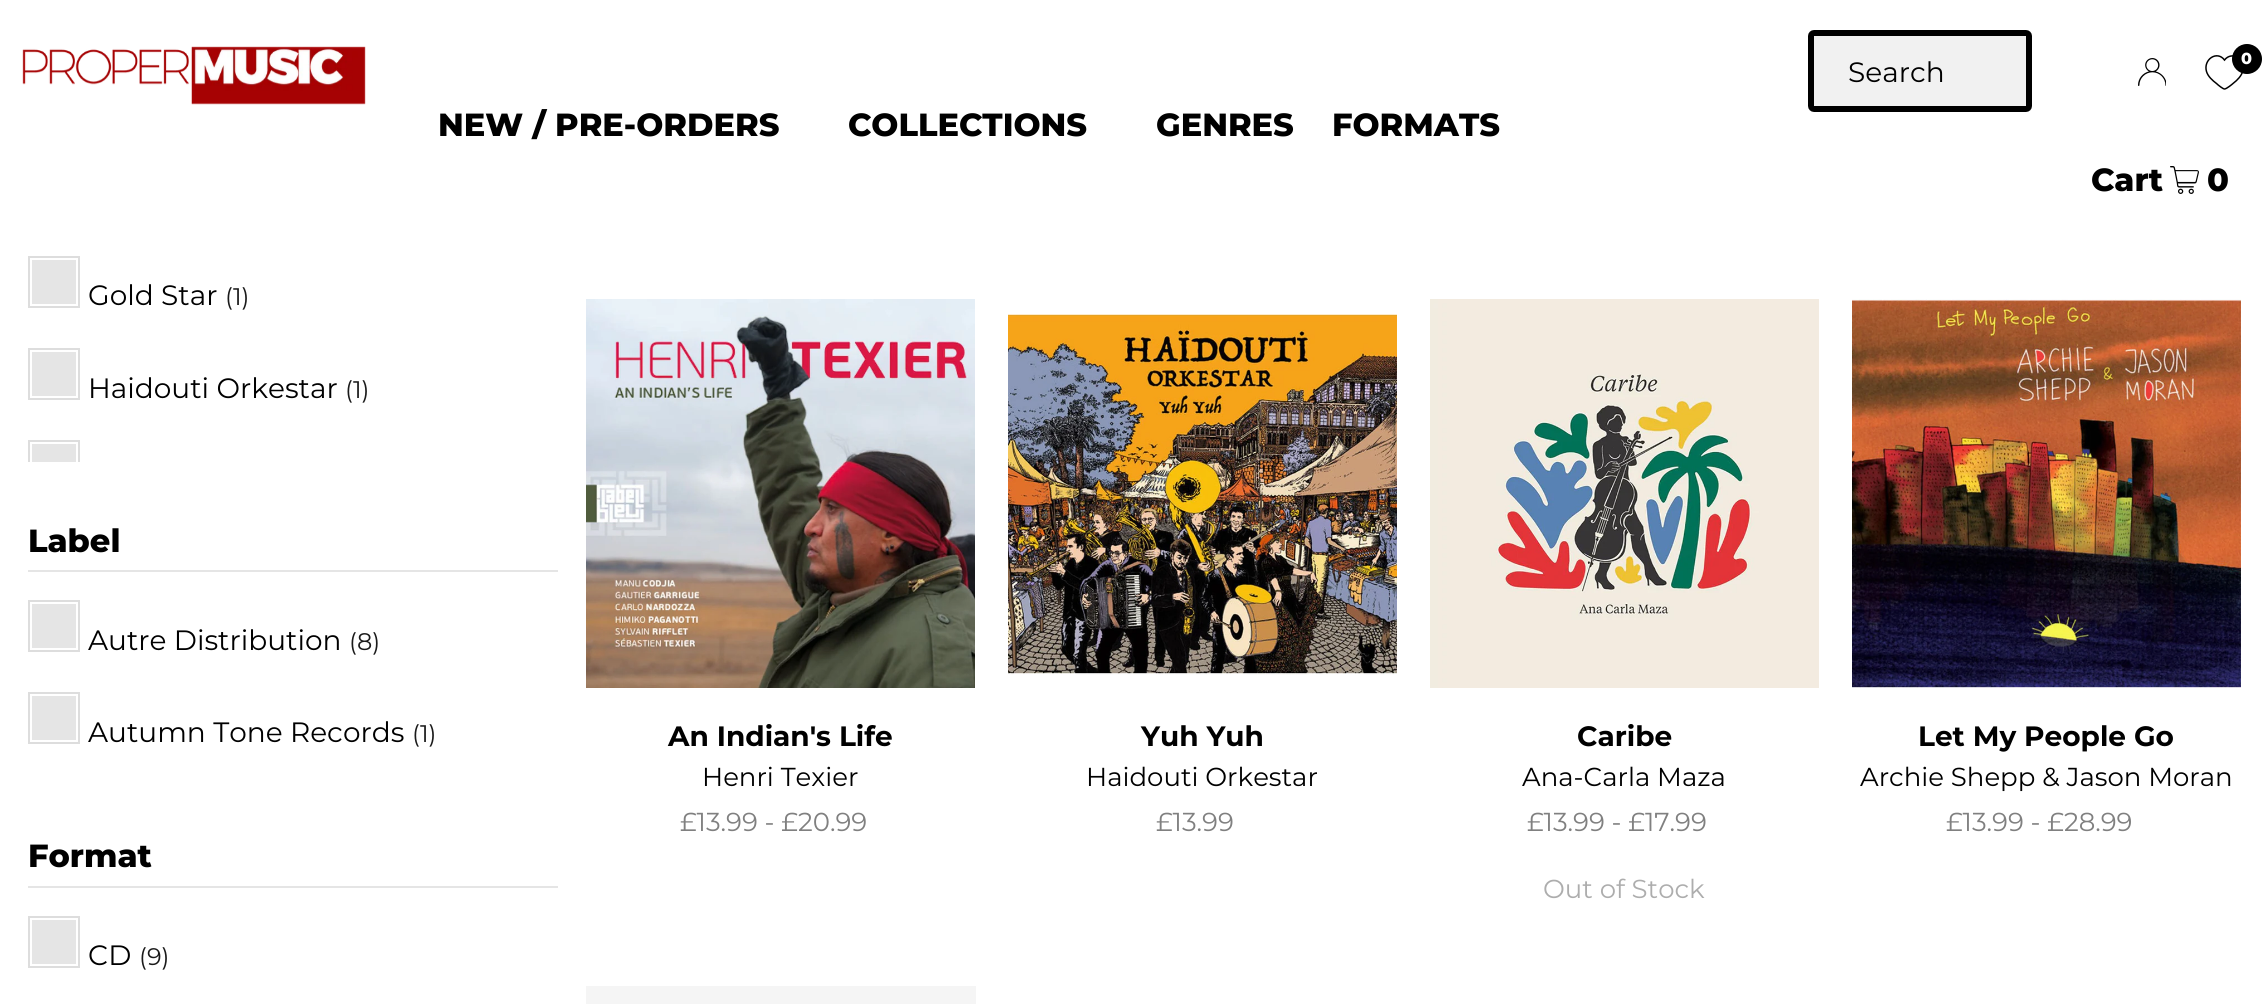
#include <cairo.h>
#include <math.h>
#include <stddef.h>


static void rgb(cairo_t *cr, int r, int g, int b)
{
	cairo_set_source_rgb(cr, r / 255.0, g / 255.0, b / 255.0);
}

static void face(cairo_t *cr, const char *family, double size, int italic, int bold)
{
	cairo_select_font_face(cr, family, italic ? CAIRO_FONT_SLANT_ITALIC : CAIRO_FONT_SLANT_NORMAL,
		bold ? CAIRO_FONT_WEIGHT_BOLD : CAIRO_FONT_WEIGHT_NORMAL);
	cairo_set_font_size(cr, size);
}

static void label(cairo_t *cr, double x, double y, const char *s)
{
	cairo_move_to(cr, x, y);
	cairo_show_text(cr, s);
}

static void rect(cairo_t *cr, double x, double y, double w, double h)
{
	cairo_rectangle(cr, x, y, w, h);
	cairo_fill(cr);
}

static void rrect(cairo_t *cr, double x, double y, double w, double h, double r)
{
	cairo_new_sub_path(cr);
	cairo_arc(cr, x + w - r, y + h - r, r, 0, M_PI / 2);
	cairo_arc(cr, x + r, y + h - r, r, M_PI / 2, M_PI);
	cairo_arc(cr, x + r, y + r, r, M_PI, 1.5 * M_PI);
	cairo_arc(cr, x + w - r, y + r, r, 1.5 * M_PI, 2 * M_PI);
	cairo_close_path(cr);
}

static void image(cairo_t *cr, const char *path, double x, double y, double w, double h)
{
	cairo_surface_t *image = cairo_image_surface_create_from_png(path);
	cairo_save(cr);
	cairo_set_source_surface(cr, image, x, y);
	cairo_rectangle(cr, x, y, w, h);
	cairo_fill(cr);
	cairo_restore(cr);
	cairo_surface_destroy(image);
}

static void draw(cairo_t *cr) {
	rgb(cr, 255, 255, 255);
	cairo_paint(cr);
	image(cr, "image0.png", 22, 46, 344, 59);
	face(cr, "Montserrat ExtraBold", 32, 0, 0);
	rgb(cr, 0, 0, 0);
	label(cr, 438, 136, "NEW / PRE-ORDERS");
	label(cr, 848, 136, "COLLECTIONS");
	label(cr, 1156, 136, "GENRES");
	label(cr, 1332, 136, "FORMATS");
	rgb(cr, 241, 241, 241);
	rrect(cr, 1811, 33, 218, 76, 3);
	cairo_fill_preserve(cr);
	rgb(cr, 0, 0, 0);
	cairo_set_line_width(cr, 6);
	cairo_stroke(cr);
	face(cr, "Montserrat", 28, 0, 0);
	label(cr, 1848, 82, "Search");
	image(cr, "image1.png", 2138, 58, 28, 28);
	cairo_new_path(cr);
	cairo_move_to(cr, 2224.5, 89);
	cairo_curve_to(cr, 2223, 89, 2218, 85, 2216.5, 83.5);
	cairo_curve_to(cr, 2212.5, 80.5, 2208, 76.5, 2206.5, 71.5);
	cairo_curve_to(cr, 2203, 59.5, 2217, 50, 2224.5, 60);
	cairo_curve_to(cr, 2232, 50.5, 2246, 59, 2243, 70.5);
	cairo_curve_to(cr, 2241.5, 76, 2237.5, 80, 2233, 83.5);
	cairo_curve_to(cr, 2232.5, 84, 2226.5, 89, 2224.5, 89);
	cairo_close_path(cr);
	cairo_set_line_width(cr, 1.5);
	cairo_stroke(cr);
	cairo_arc(cr, 2247, 59, 15, 0, 2 * M_PI);
	cairo_fill(cr);
	face(cr, "Montserrat ExtraBold", 16, 0, 0);
	rgb(cr, 255, 255, 255);
	label(cr, 2241, 64, "0");
	face(cr, "Montserrat ExtraBold", 32, 0, 0);
	rgb(cr, 0, 0, 0);
	label(cr, 2091, 191, "Cart");
	image(cr, "image2.png", 2170, 166, 29, 28);
	label(cr, 2207, 191, "0");
	cairo_rectangle(cr, 29, 257, 50, 50);
	rgb(cr, 221, 221, 221);
	cairo_set_line_width(cr, 2);
	cairo_stroke(cr);
	rgb(cr, 229, 229, 229);
	rect(cr, 32, 260, 44, 44);
	face(cr, "Montserrat", 28, 0, 0);
	rgb(cr, 0, 0, 0);
	label(cr, 88, 305, "Gold Star");
	face(cr, "Montserrat", 24, 0, 0);
	rgb(cr, 26, 26, 26);
	label(cr, 225, 305, "(1)");
	cairo_rectangle(cr, 29, 349, 50, 50);
	rgb(cr, 221, 221, 221);
	cairo_stroke(cr);
	rgb(cr, 229, 229, 229);
	rect(cr, 32, 352, 44, 44);
	face(cr, "Montserrat", 28, 0, 0);
	rgb(cr, 0, 0, 0);
	label(cr, 88, 398, "Haidouti Orkestar");
	face(cr, "Montserrat", 24, 0, 0);
	rgb(cr, 26, 26, 26);
	label(cr, 345, 398, "(1)");
	cairo_save(cr);
	cairo_rectangle(cr, 28, 62, 530, 400);
	cairo_clip(cr);
	cairo_rectangle(cr, 29, 441, 50, 50);
	rgb(cr, 221, 221, 221);
	cairo_stroke(cr);
	cairo_restore(cr);
	rgb(cr, 229, 229, 229);
	rect(cr, 32, 444, 44, 18);
	rect(cr, 28, 570, 530, 2);
	face(cr, "Montserrat ExtraBold", 32, 0, 0);
	rgb(cr, 0, 0, 0);
	label(cr, 28, 552, "Label");
	cairo_rectangle(cr, 29, 601, 50, 50);
	rgb(cr, 221, 221, 221);
	cairo_stroke(cr);
	rgb(cr, 229, 229, 229);
	rect(cr, 32, 604, 44, 44);
	face(cr, "Montserrat", 28, 0, 0);
	rgb(cr, 0, 0, 0);
	label(cr, 88, 650, "Autre Distribution");
	face(cr, "Montserrat", 24, 0, 0);
	rgb(cr, 26, 26, 26);
	label(cr, 349, 650, "(8)");
	cairo_rectangle(cr, 29, 693, 50, 50);
	rgb(cr, 221, 221, 221);
	cairo_stroke(cr);
	rgb(cr, 229, 229, 229);
	rect(cr, 32, 696, 44, 44);
	face(cr, "Montserrat", 28, 0, 0);
	rgb(cr, 0, 0, 0);
	label(cr, 88, 742, "Autumn Tone Records");
	face(cr, "Montserrat", 24, 0, 0);
	rgb(cr, 26, 26, 26);
	label(cr, 412, 742, "(1)");
	rgb(cr, 229, 229, 229);
	rect(cr, 28, 886, 530, 2);
	face(cr, "Montserrat ExtraBold", 32, 0, 0);
	rgb(cr, 0, 0, 0);
	label(cr, 28, 867, "Format");
	cairo_rectangle(cr, 29, 917, 50, 50);
	rgb(cr, 221, 221, 221);
	cairo_stroke(cr);
	rgb(cr, 229, 229, 229);
	rect(cr, 32, 920, 44, 44);
	face(cr, "Montserrat", 28, 0, 0);
	rgb(cr, 0, 0, 0);
	label(cr, 88, 965, "CD");
	face(cr, "Montserrat", 24, 0, 0);
	rgb(cr, 26, 26, 26);
	label(cr, 139, 965, "(9)");
	image(cr, "image3.png", 586, 299, 389, 389);
	face(cr, "Montserrat", 28, 0, 1);
	rgb(cr, 0, 0, 0);
	label(cr, 668, 746, "An Indian's Life");
	face(cr, "Montserrat", 26, 0, 0);
	label(cr, 702, 786, "Henri Texier");
	rgb(cr, 128, 128, 128);
	label(cr, 680, 831, "£13.99 - £20.99");
	image(cr, "image4.png", 1008, 314, 389, 361);
	face(cr, "Montserrat", 28, 0, 1);
	rgb(cr, 0, 0, 0);
	label(cr, 1141, 746, "Yuh Yuh");
	face(cr, "Montserrat", 26, 0, 0);
	label(cr, 1086, 786, "Haidouti Orkestar");
	rgb(cr, 128, 128, 128);
	label(cr, 1156, 831, "£13.99");
	image(cr, "image5.png", 1430, 299, 389, 389);
	face(cr, "Montserrat", 28, 0, 1);
	rgb(cr, 0, 0, 0);
	label(cr, 1577, 746, "Caribe");
	face(cr, "Montserrat", 26, 0, 0);
	label(cr, 1522, 786, "Ana-Carla Maza");
	rgb(cr, 128, 128, 128);
	label(cr, 1527, 831, "£13.99 - £17.99");
	rgb(cr, 173, 173, 173);
	label(cr, 1543, 898, "Out of Stock");
	image(cr, "image6.png", 1852, 299, 389, 389);
	face(cr, "Montserrat", 28, 0, 1);
	rgb(cr, 0, 0, 0);
	label(cr, 1918, 746, "Let My People Go");
	face(cr, "Montserrat", 26, 0, 0);
	label(cr, 1860, 786, "Archie Shepp & Jason Moran");
	rgb(cr, 128, 128, 128);
	label(cr, 1946, 831, "£13.99 - £28.99");
	rgb(cr, 245, 245, 245);
	rect(cr, 586, 986, 390, 18);
}

int main(void) {
	cairo_surface_t *surface = cairo_image_surface_create(CAIRO_FORMAT_RGB24, 2263, 1004);
	cairo_t *cr = cairo_create(surface);
	cairo_font_options_t *options = cairo_font_options_create();
	cairo_font_options_set_hint_metrics(options, CAIRO_HINT_METRICS_OFF);
	cairo_font_options_set_hint_style(options, CAIRO_HINT_STYLE_NONE);
	cairo_set_font_options(cr, options);
	cairo_set_miter_limit(cr, 4);
	draw(cr);
	cairo_surface_write_to_png(surface, "render.png");
	cairo_font_options_destroy(options);
	cairo_destroy(cr);
	cairo_surface_destroy(surface);
	return 0;
}
